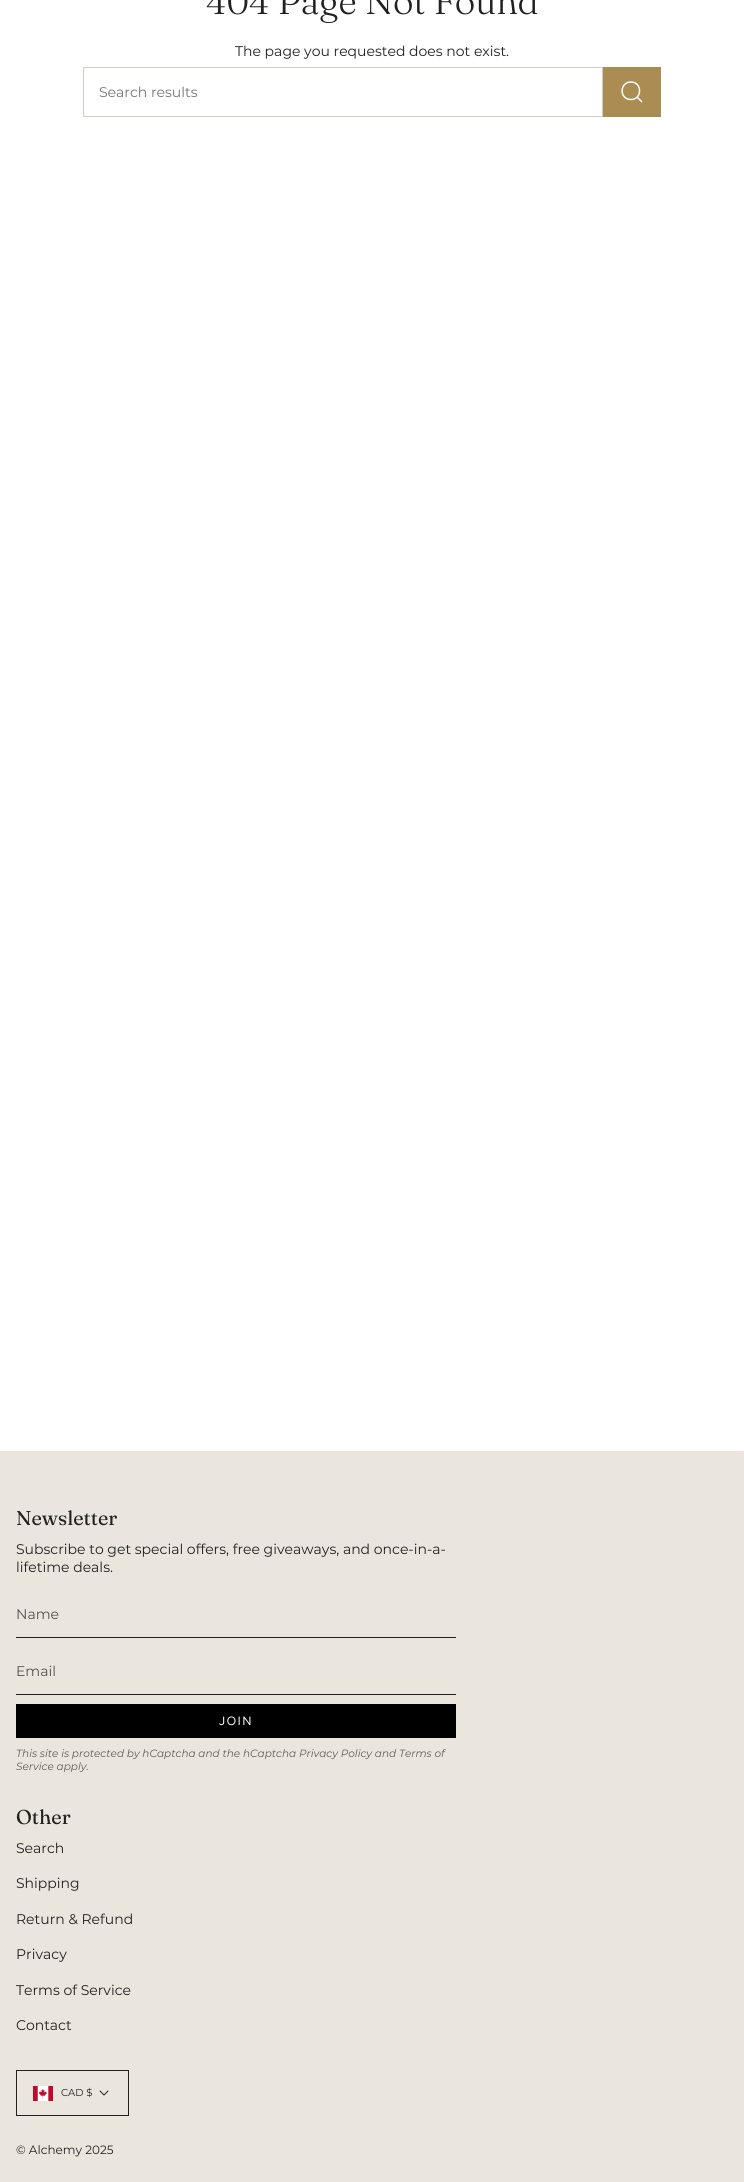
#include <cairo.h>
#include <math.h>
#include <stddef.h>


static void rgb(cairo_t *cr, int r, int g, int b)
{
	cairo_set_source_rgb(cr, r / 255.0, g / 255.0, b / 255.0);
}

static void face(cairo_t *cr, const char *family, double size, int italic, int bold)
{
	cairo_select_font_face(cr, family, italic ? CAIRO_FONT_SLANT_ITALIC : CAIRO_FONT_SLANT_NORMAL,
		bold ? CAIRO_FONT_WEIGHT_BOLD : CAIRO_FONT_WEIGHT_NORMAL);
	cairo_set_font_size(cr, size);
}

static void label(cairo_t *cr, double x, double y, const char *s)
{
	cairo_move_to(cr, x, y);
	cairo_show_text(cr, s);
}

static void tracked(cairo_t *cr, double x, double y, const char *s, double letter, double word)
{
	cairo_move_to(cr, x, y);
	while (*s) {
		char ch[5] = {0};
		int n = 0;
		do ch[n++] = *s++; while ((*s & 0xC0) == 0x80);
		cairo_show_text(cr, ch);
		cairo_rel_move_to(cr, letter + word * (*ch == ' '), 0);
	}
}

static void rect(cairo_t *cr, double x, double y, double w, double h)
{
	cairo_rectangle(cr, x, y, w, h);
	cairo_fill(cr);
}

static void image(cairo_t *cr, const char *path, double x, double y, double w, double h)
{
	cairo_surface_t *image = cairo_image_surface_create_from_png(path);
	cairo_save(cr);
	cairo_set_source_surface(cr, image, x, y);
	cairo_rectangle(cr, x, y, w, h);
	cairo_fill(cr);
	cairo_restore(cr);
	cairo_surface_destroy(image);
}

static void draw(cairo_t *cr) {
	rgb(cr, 255, 255, 255);
	cairo_paint(cr);
	face(cr, "Fraunces Light", 36.75, 0, 0);
	rgb(cr, 33, 33, 33);
	label(cr, 206, 14, "404 Page Not Found");
	face(cr, "Montserrat", 14, 0, 0);
	label(cr, 235, 56, "The page you requested does not exist.");
	cairo_rectangle(cr, 83.5, 67.5, 519, 49);
	rgb(cr, 209, 205, 196);
	cairo_set_line_width(cr, 1);
	cairo_stroke(cr);
	rgb(cr, 117, 117, 117);
	label(cr, 99, 97, "Search results");
	rgb(cr, 171, 140, 82);
	rect(cr, 603, 67, 58, 50);
	cairo_new_path(cr);
	cairo_move_to(cr, 631, 82);
	cairo_curve_to(cr, 642.5, 82, 642.5, 100, 630.5, 99.5);
	cairo_curve_to(cr, 619, 99, 619.5, 82, 631, 82);
	cairo_close_path(cr);
	cairo_move_to(cr, 637, 97);
	cairo_line_to(cr, 642, 102);
	rgb(cr, 255, 255, 255);
	cairo_set_line_width(cr, 1.5);
	cairo_stroke(cr);
	rgb(cr, 234, 230, 221);
	rect(cr, 0, 1451, 744, 731);
	face(cr, "Fraunces", 20, 0, 0);
	rgb(cr, 33, 33, 33);
	label(cr, 16, 1525, "Newsletter");
	face(cr, "Montserrat", 14, 0, 0);
	label(cr, 16, 1554, "Subscribe to get special offers, free giveaways, and once-in-a-");
	label(cr, 16, 1572, "lifetime deals.");
	rect(cr, 16, 1637, 440, 1);
	rgb(cr, 83, 82, 80);
	label(cr, 16, 1619, "Name");
	rgb(cr, 33, 33, 33);
	rect(cr, 16, 1694, 440, 1);
	rgb(cr, 83, 82, 80);
	label(cr, 16, 1676, "Email");
	rgb(cr, 0, 0, 0);
	rect(cr, 16, 1704, 440, 34);
	face(cr, "Figtree", 12, 0, 0);
	rgb(cr, 255, 255, 255);
	tracked(cr, 219, 1725, "JOIN", 1.5, 0);
	face(cr, "Montserrat", 10.5, 1, 0);
	rgb(cr, 93, 92, 89);
	label(cr, 16, 1757, "This site is protected by hCaptcha and the hCaptcha Privacy Policy and Terms of");
	label(cr, 16, 1770, "Service apply.");
	face(cr, "Fraunces", 20, 0, 0);
	rgb(cr, 33, 33, 33);
	label(cr, 16, 1824, "Other");
	face(cr, "Montserrat", 14, 0, 0);
	label(cr, 16, 1853, "Search");
	label(cr, 16, 1888, "Shipping");
	label(cr, 16, 1924, "Return & Refund");
	label(cr, 16, 1959, "Privacy");
	label(cr, 16, 1995, "Terms of Service");
	label(cr, 16, 2030, "Contact");
	cairo_rectangle(cr, 16.5, 2070.5, 112, 45);
	cairo_set_line_width(cr, 1);
	cairo_stroke(cr);
	image(cr, "image0.png", 33, 2086, 20, 15);
	face(cr, "Montserrat", 10, 0, 0);
	label(cr, 61, 2096, "CAD $");
	cairo_new_path(cr);
	cairo_move_to(cr, 100, 2091);
	cairo_line_to(cr, 104, 2095);
	cairo_line_to(cr, 108, 2091);
	cairo_set_line_cap(cr, CAIRO_LINE_CAP_ROUND);
	cairo_set_line_join(cr, CAIRO_LINE_JOIN_ROUND);
	cairo_stroke(cr);
	face(cr, "Montserrat", 12, 0, 0);
	label(cr, 16, 2154, "© Alchemy 2025");
}

int main(void) {
	cairo_surface_t *surface = cairo_image_surface_create(CAIRO_FORMAT_RGB24, 744, 2182);
	cairo_t *cr = cairo_create(surface);
	cairo_font_options_t *options = cairo_font_options_create();
	cairo_font_options_set_hint_metrics(options, CAIRO_HINT_METRICS_OFF);
	cairo_font_options_set_hint_style(options, CAIRO_HINT_STYLE_NONE);
	cairo_set_font_options(cr, options);
	cairo_set_miter_limit(cr, 4);
	draw(cr);
	cairo_surface_write_to_png(surface, "render.png");
	cairo_font_options_destroy(options);
	cairo_destroy(cr);
	cairo_surface_destroy(surface);
	return 0;
}
